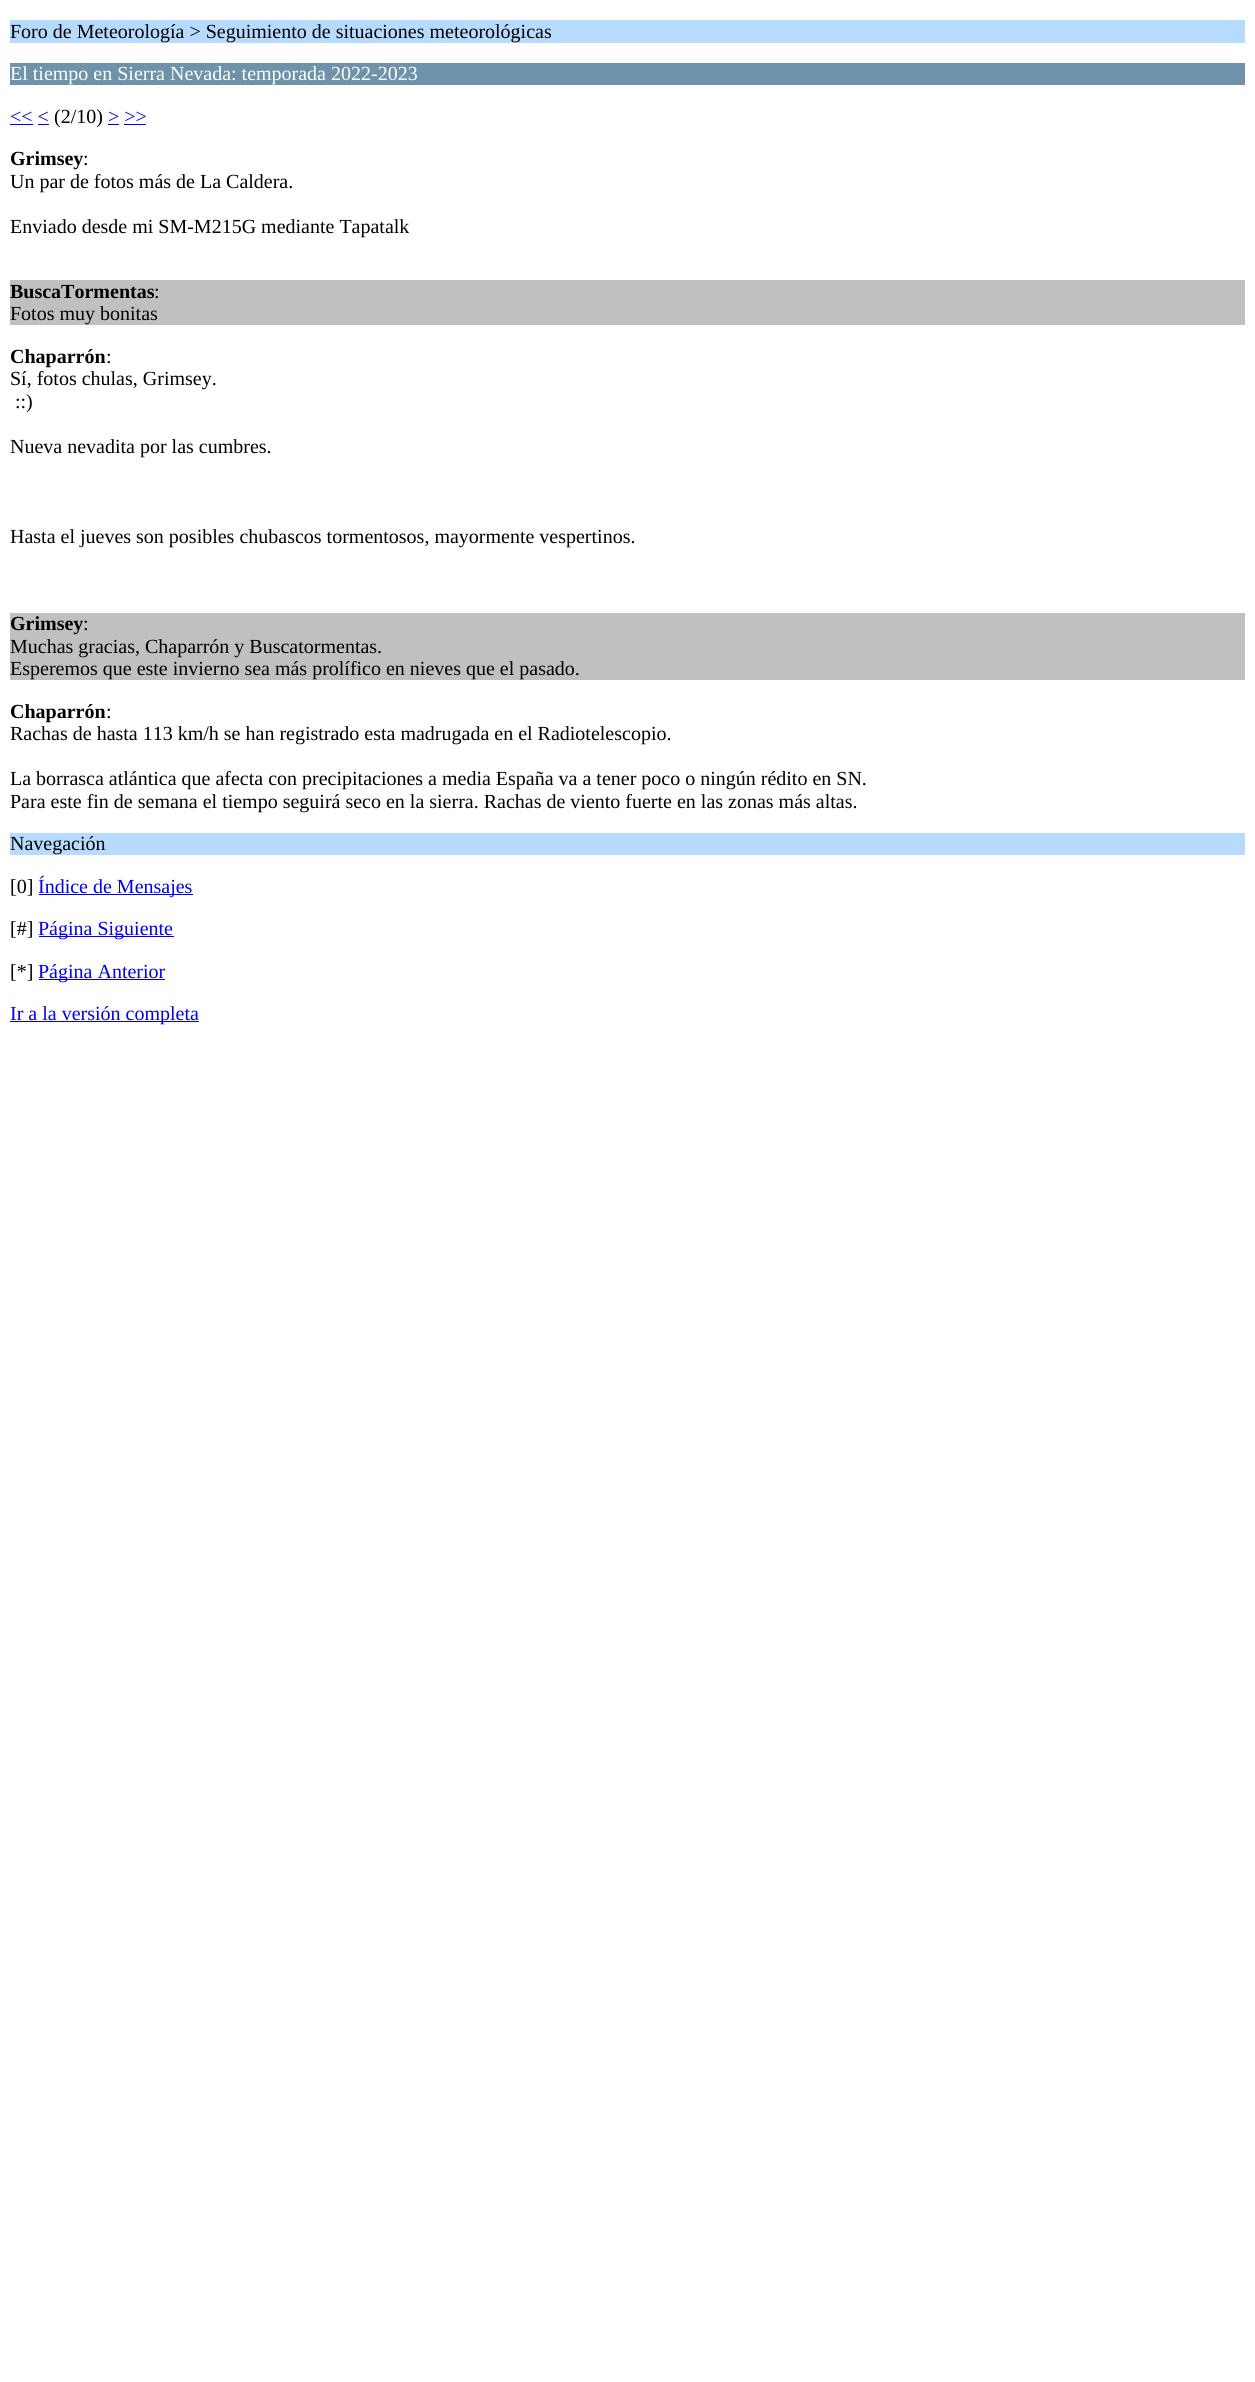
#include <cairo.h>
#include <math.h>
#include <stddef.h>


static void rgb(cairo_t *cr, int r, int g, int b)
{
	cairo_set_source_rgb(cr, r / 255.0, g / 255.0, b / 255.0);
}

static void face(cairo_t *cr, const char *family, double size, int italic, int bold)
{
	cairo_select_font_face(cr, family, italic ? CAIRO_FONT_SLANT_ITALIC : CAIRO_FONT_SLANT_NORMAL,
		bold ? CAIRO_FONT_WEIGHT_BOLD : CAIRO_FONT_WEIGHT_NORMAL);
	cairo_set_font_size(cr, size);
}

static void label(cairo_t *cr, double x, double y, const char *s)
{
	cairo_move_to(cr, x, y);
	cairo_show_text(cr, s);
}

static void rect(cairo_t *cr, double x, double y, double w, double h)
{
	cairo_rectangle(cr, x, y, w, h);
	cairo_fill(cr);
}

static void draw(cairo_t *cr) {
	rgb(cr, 255, 255, 255);
	cairo_paint(cr);
	rgb(cr, 182, 219, 255);
	rect(cr, 10, 20, 1235, 23);
	face(cr, "Liberation Serif", 20, 0, 0);
	rgb(cr, 0, 0, 0);
	label(cr, 10, 38, "Foro de Meteorología > Seguimiento de situaciones meteorológicas");
	rgb(cr, 109, 146, 170);
	rect(cr, 10, 63, 1235, 22);
	rgb(cr, 255, 255, 255);
	label(cr, 10, 80, "El tiempo en Sierra Nevada: temporada 2022-2023");
	rgb(cr, 0, 0, 238);
	label(cr, 10, 123, "<< <");
	rect(cr, 10, 124, 23, 1);
	rgb(cr, 0, 0, 0);
	label(cr, 54, 123, "(2/10)");
	rgb(cr, 0, 0, 238);
	label(cr, 108, 123, "> >>");
	rect(cr, 108, 124, 11, 1);
	rect(cr, 38, 124, 11, 1);
	rect(cr, 124, 124, 22, 1);
	face(cr, "Liberation Serif", 20, 0, 1);
	rgb(cr, 0, 0, 0);
	label(cr, 10, 165, "Grimsey");
	face(cr, "Liberation Serif", 20, 0, 0);
	label(cr, 83, 165, ":");
	label(cr, 10, 188, "Un par de fotos más de La Caldera.");
	label(cr, 10, 233, "Enviado desde mi SM-M215G mediante Tapatalk");
	rgb(cr, 192, 192, 192);
	rect(cr, 10, 280, 1235, 45);
	face(cr, "Liberation Serif", 20, 0, 1);
	rgb(cr, 0, 0, 0);
	label(cr, 10, 298, "BuscaTormentas");
	face(cr, "Liberation Serif", 20, 0, 0);
	label(cr, 154, 298, ":");
	label(cr, 10, 320, "Fotos muy bonitas");
	face(cr, "Liberation Serif", 20, 0, 1);
	label(cr, 10, 363, "Chaparrón");
	face(cr, "Liberation Serif", 20, 0, 0);
	label(cr, 106, 363, ":");
	label(cr, 10, 385, "Sí, fotos chulas, Grimsey.");
	label(cr, 15, 408, "::)");
	label(cr, 10, 453, "Nueva nevadita por las cumbres.");
	label(cr, 10, 543, "Hasta el jueves son posibles chubascos tormentosos, mayormente vespertinos.");
	rgb(cr, 192, 192, 192);
	rect(cr, 10, 613, 1235, 67);
	face(cr, "Liberation Serif", 20, 0, 1);
	rgb(cr, 0, 0, 0);
	label(cr, 10, 630, "Grimsey");
	face(cr, "Liberation Serif", 20, 0, 0);
	label(cr, 83, 630, ":");
	label(cr, 10, 653, "Muchas gracias, Chaparrón y Buscatormentas.");
	label(cr, 10, 675, "Esperemos que este invierno sea más prolífico en nieves que el pasado.");
	face(cr, "Liberation Serif", 20, 0, 1);
	label(cr, 10, 718, "Chaparrón");
	face(cr, "Liberation Serif", 20, 0, 0);
	label(cr, 106, 718, ":");
	label(cr, 10, 740, "Rachas de hasta 113 km/h se han registrado esta madrugada en el Radiotelescopio.");
	label(cr, 10, 785, "La borrasca atlántica que afecta con precipitaciones a media España va a tener poco o ningún rédito en SN.");
	label(cr, 10, 808, "Para este fin de semana el tiempo seguirá seco en la sierra. Rachas de viento fuerte en las zonas más altas.");
	rgb(cr, 182, 219, 255);
	rect(cr, 10, 833, 1235, 22);
	rgb(cr, 0, 0, 0);
	label(cr, 10, 850, "Navegación");
	label(cr, 10, 893, "[0]");
	rgb(cr, 0, 0, 238);
	rect(cr, 39, 894, 154, 1);
	label(cr, 38, 893, "Índice de Mensajes");
	rgb(cr, 0, 0, 0);
	label(cr, 10, 935, "[#]");
	rgb(cr, 0, 0, 238);
	rect(cr, 39, 936, 135, 1);
	label(cr, 38, 935, "Página Siguiente");
	rgb(cr, 0, 0, 0);
	label(cr, 10, 978, "[*]");
	rgb(cr, 0, 0, 238);
	rect(cr, 39, 979, 126, 1);
	label(cr, 38, 978, "Página Anterior");
	rect(cr, 10, 1021, 189, 1);
	label(cr, 10, 1020, "Ir a la versión completa");
}

int main(void) {
	cairo_surface_t *surface = cairo_image_surface_create(CAIRO_FORMAT_RGB24, 1255, 2382);
	cairo_t *cr = cairo_create(surface);
	cairo_font_options_t *options = cairo_font_options_create();
	cairo_font_options_set_hint_metrics(options, CAIRO_HINT_METRICS_OFF);
	cairo_font_options_set_hint_style(options, CAIRO_HINT_STYLE_NONE);
	cairo_set_font_options(cr, options);
	cairo_set_miter_limit(cr, 4);
	draw(cr);
	cairo_surface_write_to_png(surface, "render.png");
	cairo_font_options_destroy(options);
	cairo_destroy(cr);
	cairo_surface_destroy(surface);
	return 0;
}
